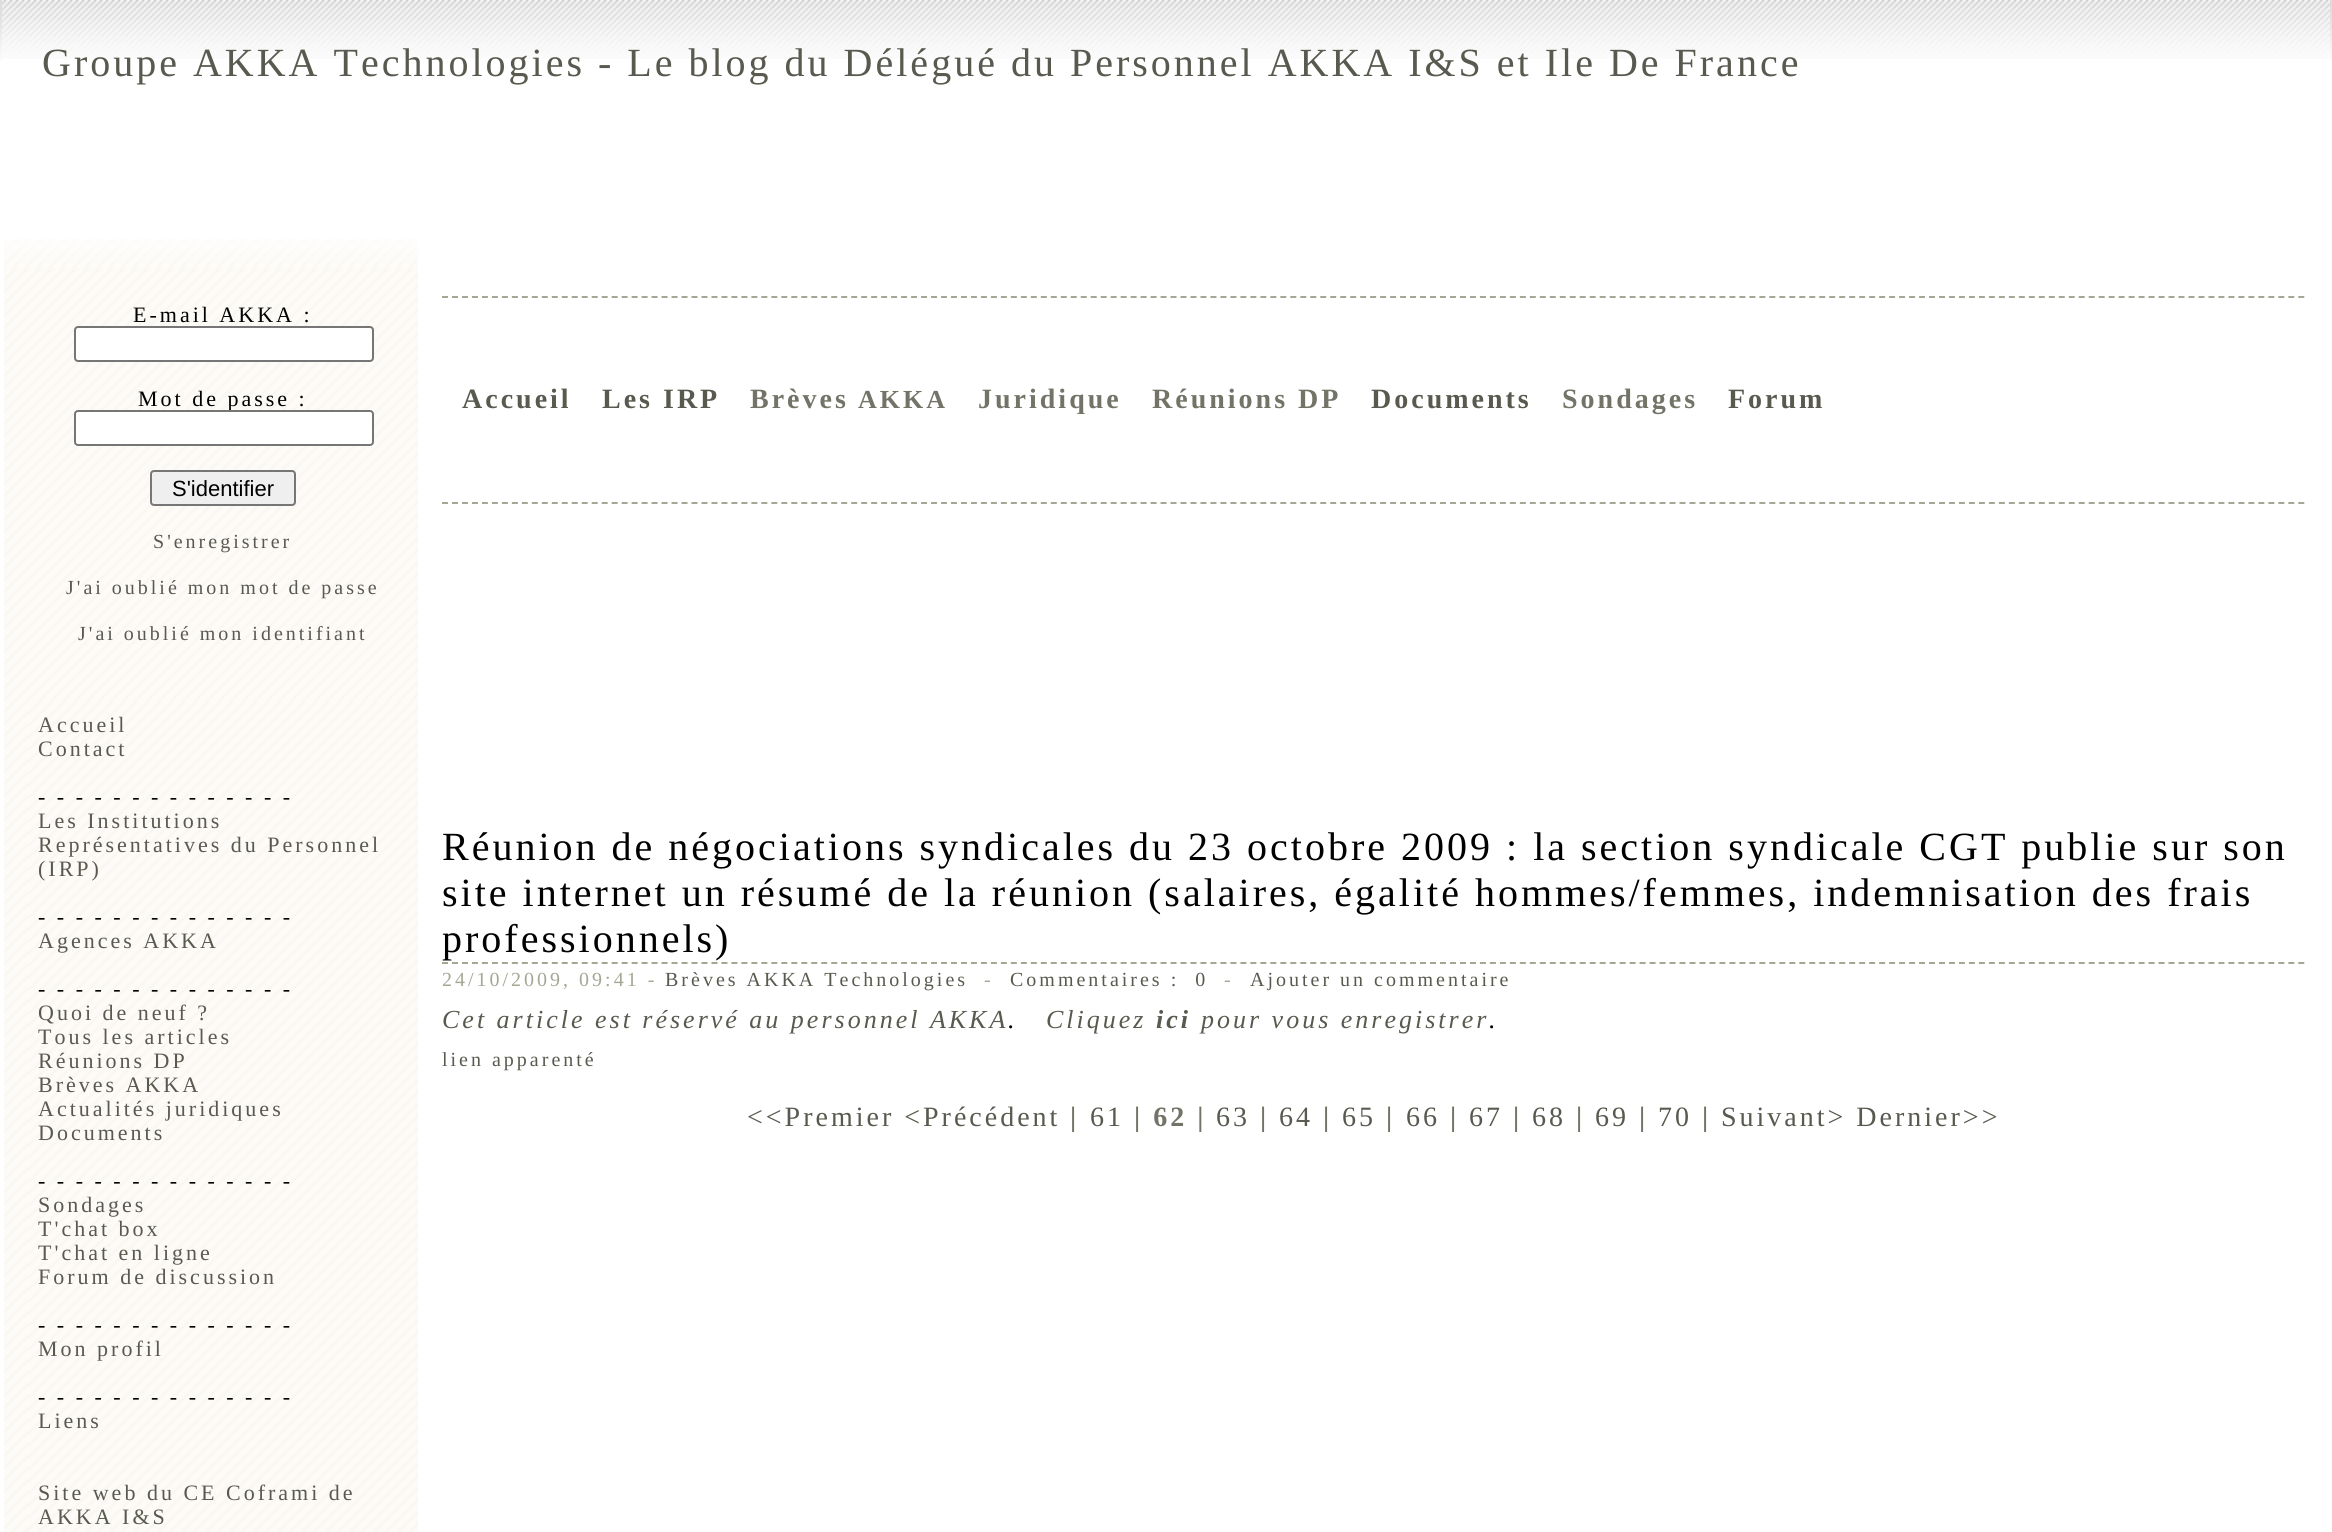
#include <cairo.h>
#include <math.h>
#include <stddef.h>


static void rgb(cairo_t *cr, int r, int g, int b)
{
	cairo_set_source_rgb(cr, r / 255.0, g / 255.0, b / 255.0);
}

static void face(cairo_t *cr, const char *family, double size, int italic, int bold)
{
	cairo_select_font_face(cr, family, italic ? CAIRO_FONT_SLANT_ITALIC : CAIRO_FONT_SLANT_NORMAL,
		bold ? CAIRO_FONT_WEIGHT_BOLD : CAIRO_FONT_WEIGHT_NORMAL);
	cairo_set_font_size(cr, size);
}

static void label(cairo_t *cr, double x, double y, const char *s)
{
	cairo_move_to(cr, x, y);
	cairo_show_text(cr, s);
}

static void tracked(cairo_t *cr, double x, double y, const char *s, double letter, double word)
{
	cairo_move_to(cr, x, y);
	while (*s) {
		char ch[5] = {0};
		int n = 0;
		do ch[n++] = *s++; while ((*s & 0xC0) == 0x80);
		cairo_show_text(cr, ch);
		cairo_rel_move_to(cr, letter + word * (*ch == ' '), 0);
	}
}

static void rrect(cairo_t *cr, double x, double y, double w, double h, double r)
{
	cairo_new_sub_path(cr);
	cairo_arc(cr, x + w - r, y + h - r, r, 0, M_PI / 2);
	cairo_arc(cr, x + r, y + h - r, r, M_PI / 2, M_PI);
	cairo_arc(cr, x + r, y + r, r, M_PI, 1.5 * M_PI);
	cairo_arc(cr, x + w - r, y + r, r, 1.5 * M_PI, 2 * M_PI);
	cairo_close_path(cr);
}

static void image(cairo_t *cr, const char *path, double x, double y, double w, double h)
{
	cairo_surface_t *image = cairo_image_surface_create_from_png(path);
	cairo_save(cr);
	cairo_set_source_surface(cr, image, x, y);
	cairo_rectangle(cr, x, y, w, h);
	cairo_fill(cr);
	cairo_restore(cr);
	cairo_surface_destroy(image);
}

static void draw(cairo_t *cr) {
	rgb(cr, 255, 255, 255);
	cairo_paint(cr);
	image(cr, "image0.png", 0, 0, 2, 61);
	image(cr, "image0.png", 2330, 0, 2, 61);
	image(cr, "image1.png", 2, 0, 2328, 59);
	face(cr, "Liberation Serif", 40, 0, 0);
	rgb(cr, 89, 89, 79);
	tracked(cr, 42, 76, "Groupe AKKA Technologies - Le blog du Délégué du Personnel AKKA I&S et Ile De France", 3, 0);
	image(cr, "image2.png", 4, 239, 414, 29);
	image(cr, "image3.png", 4, 268, 24, 1264);
	image(cr, "image4.png", 28, 268, 390, 434);
	face(cr, "Liberation Serif", 22, 0, 0);
	rgb(cr, 0, 0, 0);
	tracked(cr, 133, 322, "E-mail AKKA :", 3, 0);
	rgb(cr, 255, 255, 255);
	rrect(cr, 75, 327, 298, 34, 3);
	cairo_fill_preserve(cr);
	rgb(cr, 118, 118, 118);
	cairo_stroke(cr);
	rgb(cr, 0, 0, 0);
	tracked(cr, 138, 406, "Mot de passe :", 3, 0);
	rgb(cr, 255, 255, 255);
	rrect(cr, 75, 411, 298, 34, 3);
	cairo_fill_preserve(cr);
	rgb(cr, 118, 118, 118);
	cairo_stroke(cr);
	rgb(cr, 239, 239, 239);
	rrect(cr, 151, 471, 144, 34, 3);
	cairo_fill_preserve(cr);
	rgb(cr, 118, 118, 118);
	cairo_stroke(cr);
	face(cr, "Liberation Sans", 22, 0, 0);
	rgb(cr, 0, 0, 0);
	label(cr, 172, 496, "S'identifier");
	face(cr, "Liberation Serif", 20, 0, 0);
	rgb(cr, 89, 89, 79);
	tracked(cr, 153, 548, "S'enregistrer", 3, 0);
	tracked(cr, 66, 594, "J'ai oublié mon mot de passe", 3, 0);
	tracked(cr, 78, 640, "J'ai oublié mon identifiant", 3, 0);
	image(cr, "image5.png", 28, 702, 390, 830);
	face(cr, "Liberation Serif", 22, 0, 0);
	tracked(cr, 38, 732, "Accueil", 3, 0);
	tracked(cr, 38, 756, "Contact", 3, 0);
	rgb(cr, 0, 0, 0);
	tracked(cr, 38, 804, "- - - - - - - - - - - - - -", 3, 0);
	rgb(cr, 89, 89, 79);
	tracked(cr, 38, 828, "Les Institutions", 3, 0);
	tracked(cr, 38, 852, "Représentatives du Personnel", 3, 0);
	tracked(cr, 38, 876, "(IRP)", 3, 0);
	rgb(cr, 0, 0, 0);
	tracked(cr, 38, 924, "- - - - - - - - - - - - - -", 3, 0);
	rgb(cr, 89, 89, 79);
	tracked(cr, 38, 948, "Agences AKKA", 3, 0);
	rgb(cr, 0, 0, 0);
	tracked(cr, 38, 996, "- - - - - - - - - - - - - -", 3, 0);
	rgb(cr, 89, 89, 79);
	tracked(cr, 38, 1020, "Quoi de neuf ?", 3, 0);
	tracked(cr, 38, 1044, "Tous les articles", 3, 0);
	tracked(cr, 38, 1068, "Réunions DP", 3, 0);
	tracked(cr, 38, 1092, "Brèves AKKA", 3, 0);
	tracked(cr, 38, 1116, "Actualités juridiques", 3, 0);
	tracked(cr, 38, 1140, "Documents", 3, 0);
	rgb(cr, 0, 0, 0);
	tracked(cr, 38, 1188, "- - - - - - - - - - - - - -", 3, 0);
	rgb(cr, 89, 89, 79);
	tracked(cr, 38, 1212, "Sondages", 3, 0);
	tracked(cr, 38, 1236, "T'chat box", 3, 0);
	tracked(cr, 38, 1260, "T'chat en ligne", 3, 0);
	tracked(cr, 38, 1284, "Forum de discussion", 3, 0);
	rgb(cr, 0, 0, 0);
	tracked(cr, 38, 1332, "- - - - - - - - - - - - - -", 3, 0);
	rgb(cr, 89, 89, 79);
	tracked(cr, 38, 1356, "Mon profil", 3, 0);
	rgb(cr, 0, 0, 0);
	tracked(cr, 38, 1404, "- - - - - - - - - - - - - -", 3, 0);
	rgb(cr, 89, 89, 79);
	tracked(cr, 38, 1428, "Liens", 3, 0);
	tracked(cr, 38, 1500, "Site web du CE Coframi de", 3, 0);
	tracked(cr, 38, 1524, "AKKA I&S", 3, 0);
	cairo_new_path(cr);
	cairo_move_to(cr, 442, 297);
	cairo_line_to(cr, 2306, 297);
	rgb(cr, 166, 166, 149);
	cairo_set_dash(cr, (double[]){6, 3.98}, 2, 0);
	cairo_stroke(cr);
	face(cr, "Liberation Serif", 28, 0, 1);
	rgb(cr, 89, 89, 79);
	tracked(cr, 462, 408, "Accueil", 3, 0);
	tracked(cr, 602, 408, "Les IRP", 3, 0);
	rgb(cr, 115, 115, 103);
	tracked(cr, 750, 408, "Brèves", 3, 0);
	face(cr, "Liberation Serif", 26, 0, 1);
	tracked(cr, 858, 408, "AKKA", 3, 0);
	face(cr, "Liberation Serif", 28, 0, 1);
	tracked(cr, 978, 408, "Juridique", 3, 0);
	tracked(cr, 1152, 408, "Réunions", 3, 0);
	tracked(cr, 1298, 408, "DP", 3, 0);
	rgb(cr, 89, 89, 79);
	tracked(cr, 1371, 408, "Documents", 3, 0);
	rgb(cr, 115, 115, 103);
	tracked(cr, 1562, 408, "Sondages", 3, 0);
	rgb(cr, 89, 89, 79);
	tracked(cr, 1728, 408, "Forum", 3, 0);
	cairo_new_path(cr);
	cairo_move_to(cr, 442, 503);
	cairo_line_to(cr, 2306, 503);
	rgb(cr, 166, 166, 149);
	cairo_stroke(cr);
	cairo_new_path(cr);
	cairo_move_to(cr, 442, 963);
	cairo_line_to(cr, 2306, 963);
	cairo_stroke(cr);
	face(cr, "Liberation Serif", 40, 0, 0);
	rgb(cr, 0, 0, 0);
	tracked(cr, 442, 860, "Réunion de négociations syndicales du 23 octobre 2009 : la section syndicale CGT publie sur son", 3, 0);
	tracked(cr, 442, 906, "site internet un résumé de la réunion (salaires, égalité hommes/femmes, indemnisation des frais", 3, 0);
	tracked(cr, 442, 952, "professionnels)", 3, 0);
	face(cr, "Liberation Serif", 20, 0, 0);
	rgb(cr, 166, 166, 149);
	tracked(cr, 442, 986, "24/10/2009, 09:41 -", 3, 0);
	rgb(cr, 89, 89, 79);
	tracked(cr, 665, 986, "Brèves AKKA Technologies", 3, 0);
	rgb(cr, 166, 166, 149);
	tracked(cr, 984, 986, "-", 3, 0);
	rgb(cr, 89, 89, 79);
	tracked(cr, 1010, 986, "Commentaires :  0", 3, 0);
	rgb(cr, 166, 166, 149);
	tracked(cr, 1224, 986, "-", 3, 0);
	rgb(cr, 89, 89, 79);
	tracked(cr, 1250, 986, "Ajouter un commentaire", 3, 0);
	face(cr, "Liberation Serif", 26, 1, 0);
	tracked(cr, 442, 1028, "Cet article est réservé au personnel AKKA", 3, 0);
	rgb(cr, 0, 0, 0);
	tracked(cr, 1008, 1028, ".", 3, 0);
	rgb(cr, 89, 89, 79);
	tracked(cr, 1046, 1028, "Cliquez", 3, 0);
	face(cr, "Liberation Serif", 26, 1, 1);
	tracked(cr, 1156, 1028, "ici", 3, 0);
	face(cr, "Liberation Serif", 26, 1, 0);
	tracked(cr, 1201, 1028, "pour vous enregistrer", 3, 0);
	rgb(cr, 0, 0, 0);
	tracked(cr, 1489, 1028, ".", 3, 0);
	face(cr, "Liberation Serif", 20, 0, 0);
	rgb(cr, 89, 89, 79);
	tracked(cr, 442, 1066, "lien apparenté", 3, 0);
	face(cr, "Liberation Serif", 28, 0, 0);
	tracked(cr, 747, 1126, "<<Premier <Précédent", 3, 0);
	face(cr, "Liberation Serif", 28, 0, 1);
	rgb(cr, 115, 115, 103);
	tracked(cr, 1070, 1126, "|", 3, 0);
	face(cr, "Liberation Serif", 28, 0, 0);
	rgb(cr, 89, 89, 79);
	tracked(cr, 1090, 1126, "61", 3, 0);
	face(cr, "Liberation Serif", 28, 0, 1);
	rgb(cr, 115, 115, 103);
	tracked(cr, 1134, 1126, "| 62 |", 3, 0);
	face(cr, "Liberation Serif", 28, 0, 0);
	rgb(cr, 89, 89, 79);
	tracked(cr, 1216, 1126, "63", 3, 0);
	face(cr, "Liberation Serif", 28, 0, 1);
	rgb(cr, 115, 115, 103);
	tracked(cr, 1260, 1126, "|", 3, 0);
	face(cr, "Liberation Serif", 28, 0, 0);
	rgb(cr, 89, 89, 79);
	tracked(cr, 1279, 1126, "64", 3, 0);
	face(cr, "Liberation Serif", 28, 0, 1);
	rgb(cr, 115, 115, 103);
	tracked(cr, 1323, 1126, "|", 3, 0);
	face(cr, "Liberation Serif", 28, 0, 0);
	rgb(cr, 89, 89, 79);
	tracked(cr, 1342, 1126, "65", 3, 0);
	face(cr, "Liberation Serif", 28, 0, 1);
	rgb(cr, 115, 115, 103);
	tracked(cr, 1386, 1126, "|", 3, 0);
	face(cr, "Liberation Serif", 28, 0, 0);
	rgb(cr, 89, 89, 79);
	tracked(cr, 1406, 1126, "66", 3, 0);
	face(cr, "Liberation Serif", 28, 0, 1);
	rgb(cr, 115, 115, 103);
	tracked(cr, 1450, 1126, "|", 3, 0);
	face(cr, "Liberation Serif", 28, 0, 0);
	rgb(cr, 89, 89, 79);
	tracked(cr, 1469, 1126, "67", 3, 0);
	face(cr, "Liberation Serif", 28, 0, 1);
	rgb(cr, 115, 115, 103);
	tracked(cr, 1513, 1126, "|", 3, 0);
	face(cr, "Liberation Serif", 28, 0, 0);
	rgb(cr, 89, 89, 79);
	tracked(cr, 1532, 1126, "68", 3, 0);
	face(cr, "Liberation Serif", 28, 0, 1);
	rgb(cr, 115, 115, 103);
	tracked(cr, 1576, 1126, "|", 3, 0);
	face(cr, "Liberation Serif", 28, 0, 0);
	rgb(cr, 89, 89, 79);
	tracked(cr, 1595, 1126, "69", 3, 0);
	face(cr, "Liberation Serif", 28, 0, 1);
	rgb(cr, 115, 115, 103);
	tracked(cr, 1639, 1126, "|", 3, 0);
	face(cr, "Liberation Serif", 28, 0, 0);
	rgb(cr, 89, 89, 79);
	tracked(cr, 1658, 1126, "70", 3, 0);
	face(cr, "Liberation Serif", 28, 0, 1);
	rgb(cr, 115, 115, 103);
	tracked(cr, 1702, 1126, "|", 3, 0);
	face(cr, "Liberation Serif", 28, 0, 0);
	rgb(cr, 89, 89, 79);
	tracked(cr, 1721, 1126, "Suivant> Dernier>>", 3, 0);
}

int main(void) {
	cairo_surface_t *surface = cairo_image_surface_create(CAIRO_FORMAT_RGB24, 2332, 1532);
	cairo_t *cr = cairo_create(surface);
	cairo_font_options_t *options = cairo_font_options_create();
	cairo_font_options_set_hint_metrics(options, CAIRO_HINT_METRICS_OFF);
	cairo_font_options_set_hint_style(options, CAIRO_HINT_STYLE_NONE);
	cairo_set_font_options(cr, options);
	cairo_set_miter_limit(cr, 4);
	draw(cr);
	cairo_surface_write_to_png(surface, "render.png");
	cairo_font_options_destroy(options);
	cairo_destroy(cr);
	cairo_surface_destroy(surface);
	return 0;
}
